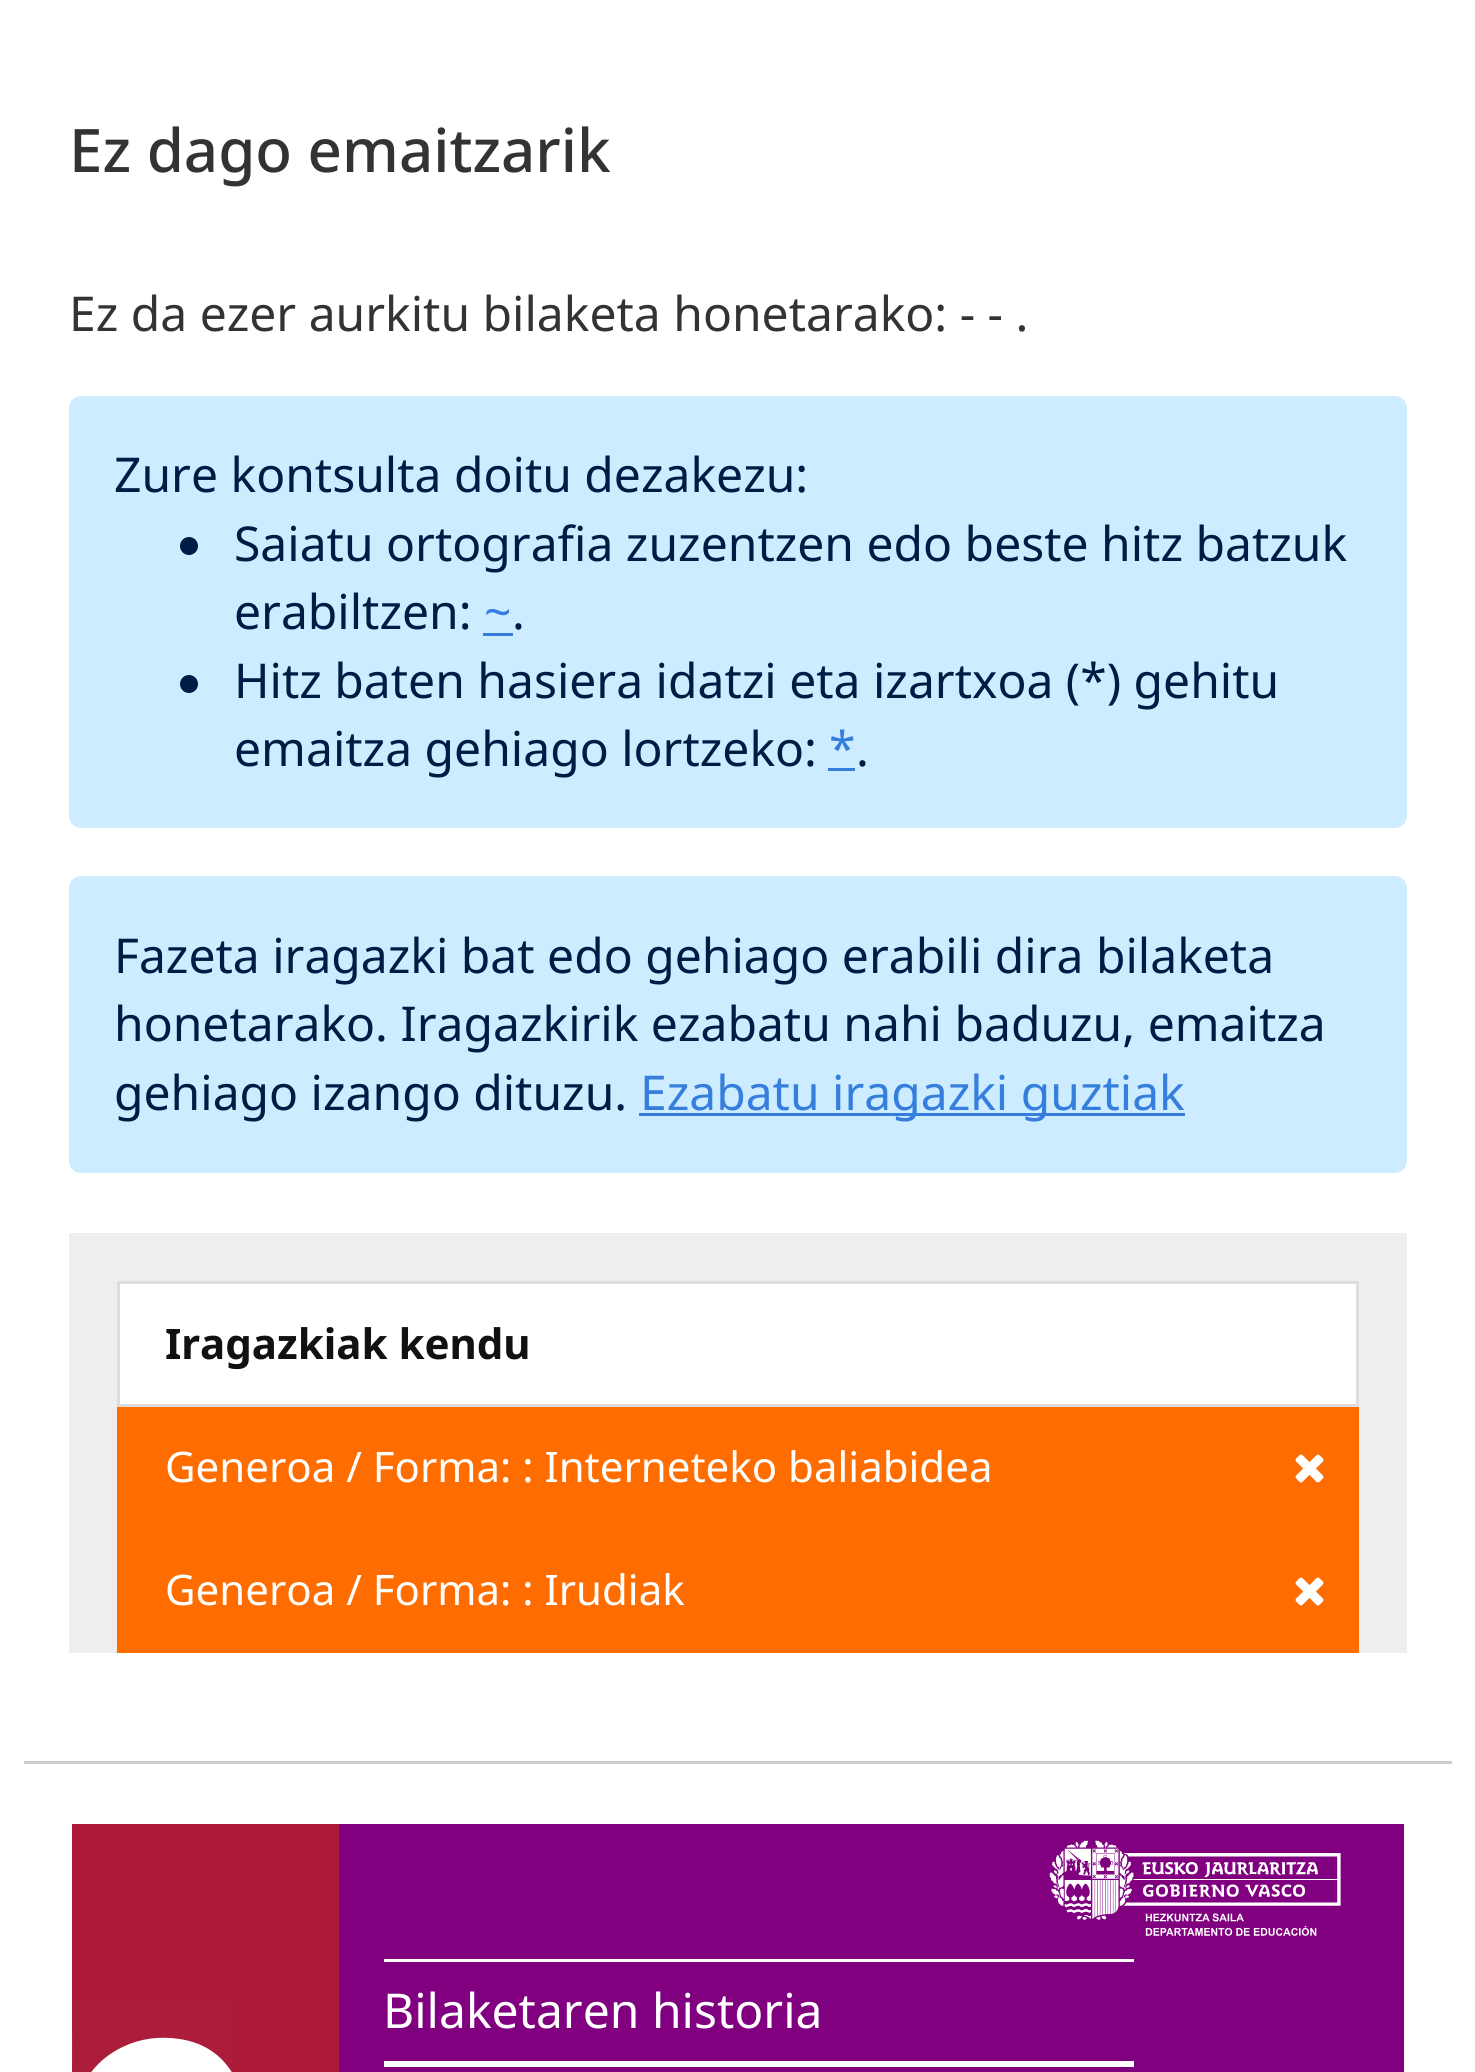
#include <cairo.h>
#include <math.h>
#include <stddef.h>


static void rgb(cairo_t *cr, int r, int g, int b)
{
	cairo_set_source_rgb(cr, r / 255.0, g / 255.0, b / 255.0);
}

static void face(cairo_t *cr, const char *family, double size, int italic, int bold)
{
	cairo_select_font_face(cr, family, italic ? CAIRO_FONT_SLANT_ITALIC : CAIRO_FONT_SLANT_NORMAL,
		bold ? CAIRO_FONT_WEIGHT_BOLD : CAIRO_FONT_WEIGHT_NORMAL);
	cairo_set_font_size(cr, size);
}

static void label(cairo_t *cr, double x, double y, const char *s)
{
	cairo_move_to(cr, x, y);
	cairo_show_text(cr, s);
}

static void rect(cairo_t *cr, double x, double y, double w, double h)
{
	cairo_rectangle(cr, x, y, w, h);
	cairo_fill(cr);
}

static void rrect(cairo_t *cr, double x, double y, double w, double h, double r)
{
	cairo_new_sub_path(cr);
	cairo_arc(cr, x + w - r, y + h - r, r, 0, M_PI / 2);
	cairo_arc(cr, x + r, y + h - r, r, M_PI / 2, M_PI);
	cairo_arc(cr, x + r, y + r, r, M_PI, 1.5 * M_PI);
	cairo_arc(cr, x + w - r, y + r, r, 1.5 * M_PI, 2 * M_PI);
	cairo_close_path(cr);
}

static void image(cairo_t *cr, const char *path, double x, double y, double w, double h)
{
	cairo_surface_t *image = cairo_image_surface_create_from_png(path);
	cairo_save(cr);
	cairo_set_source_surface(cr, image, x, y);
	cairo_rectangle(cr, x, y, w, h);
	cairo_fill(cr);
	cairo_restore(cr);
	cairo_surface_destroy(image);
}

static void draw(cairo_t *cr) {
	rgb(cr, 255, 255, 255);
	cairo_paint(cr);
	face(cr, "Noto Sans Medium", 60, 0, 0);
	rgb(cr, 51, 51, 51);
	label(cr, 69, 172, "Ez dago emaitzarik");
	face(cr, "Noto Sans", 48, 0, 0);
	label(cr, 69, 331, "Ez da ezer aurkitu bilaketa honetarako: - - .");
	rgb(cr, 205, 236, 255);
	rrect(cr, 69, 396, 1338, 432, 12);
	cairo_fill(cr);
	rgb(cr, 0, 27, 68);
	label(cr, 114, 492, "Zure kontsulta doitu dezakezu:");
	cairo_new_path(cr);
	cairo_arc(cr, 189, 546, 9, 0, 2 * M_PI);
	cairo_fill(cr);
	label(cr, 234, 561, "Saiatu ortografia zuzentzen edo beste hitz batzuk");
	label(cr, 234, 629, "erabiltzen:");
	rgb(cr, 53, 126, 221);
	label(cr, 484, 629, "~");
	rect(cr, 483, 633, 30, 3);
	rgb(cr, 0, 27, 68);
	label(cr, 512, 629, ".");
	cairo_new_path(cr);
	cairo_arc(cr, 189, 684, 9, 0, 2 * M_PI);
	cairo_fill(cr);
	label(cr, 234, 698, "Hitz baten hasiera idatzi eta izartxoa (*) gehitu");
	label(cr, 234, 766, "emaitza gehiago lortzeko:");
	rgb(cr, 53, 126, 221);
	label(cr, 829, 766, "*");
	rect(cr, 828, 768, 27, 3);
	rgb(cr, 0, 27, 68);
	label(cr, 856, 766, ".");
	rgb(cr, 205, 236, 255);
	rrect(cr, 69, 876, 1338, 297, 12);
	cairo_fill(cr);
	rgb(cr, 0, 27, 68);
	label(cr, 114, 973, "Fazeta iragazki bat edo gehiago erabili dira bilaketa");
	label(cr, 114, 1041, "honetarako. Iragazkirik ezabatu nahi baduzu, emaitza");
	label(cr, 114, 1110, "gehiago izango dituzu.");
	rgb(cr, 53, 126, 221);
	rect(cr, 639, 1113, 546, 3);
	label(cr, 640, 1110, "Ezabatu iragazki guztiak");
	rgb(cr, 238, 238, 238);
	rect(cr, 69, 1233, 1338, 420);
	rgb(cr, 255, 255, 255);
	cairo_rectangle(cr, 118.5, 1282.5, 1239, 123);
	cairo_fill_preserve(cr);
	rgb(cr, 221, 221, 221);
	cairo_set_line_width(cr, 3);
	cairo_stroke(cr);
	face(cr, "Noto Sans", 42, 0, 1);
	rgb(cr, 17, 17, 17);
	label(cr, 165, 1359, "Iragazkiak kendu");
	rgb(cr, 255, 109, 0);
	rect(cr, 117, 1407, 1242, 246);
	face(cr, "Noto Sans", 42, 0, 0);
	rgb(cr, 255, 255, 255);
	label(cr, 165, 1482, "Generoa / Forma: : Interneteko baliabidea");
	image(cr, "image0.png", 1295, 1454, 29, 29);
	label(cr, 165, 1605, "Generoa / Forma: : Irudiak");
	image(cr, "image0.png", 1295, 1577, 29, 29);
	rgb(cr, 204, 204, 204);
	rect(cr, 24, 1761, 1428, 3);
	rgb(cr, 173, 26, 55);
	rect(cr, 72, 1824, 267, 248);
	image(cr, "image1.png", 72, 2000, 160, 72);
	rgb(cr, 128, 0, 128);
	rect(cr, 339, 1824, 1065, 248);
	image(cr, "image2.png", 1049, 1840, 292, 96);
	rgb(cr, 255, 255, 255);
	rect(cr, 384, 1959, 750, 3);
	rect(cr, 384, 2061, 750, 6);
	face(cr, "Noto Sans", 48, 0, 0);
	label(cr, 383, 2028, "Bilaketaren historia");
}

int main(void) {
	cairo_surface_t *surface = cairo_image_surface_create(CAIRO_FORMAT_RGB24, 1475, 2072);
	cairo_t *cr = cairo_create(surface);
	cairo_font_options_t *options = cairo_font_options_create();
	cairo_font_options_set_hint_metrics(options, CAIRO_HINT_METRICS_OFF);
	cairo_font_options_set_hint_style(options, CAIRO_HINT_STYLE_NONE);
	cairo_set_font_options(cr, options);
	cairo_set_miter_limit(cr, 4);
	draw(cr);
	cairo_surface_write_to_png(surface, "render.png");
	cairo_font_options_destroy(options);
	cairo_destroy(cr);
	cairo_surface_destroy(surface);
	return 0;
}
